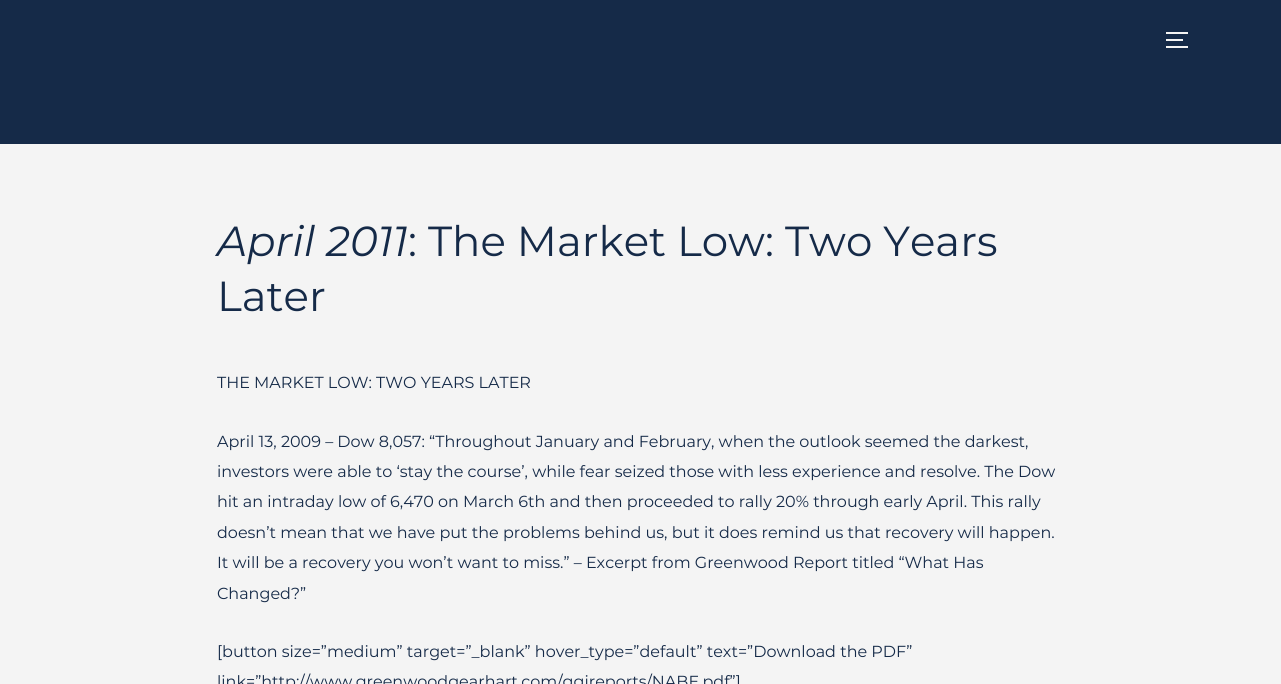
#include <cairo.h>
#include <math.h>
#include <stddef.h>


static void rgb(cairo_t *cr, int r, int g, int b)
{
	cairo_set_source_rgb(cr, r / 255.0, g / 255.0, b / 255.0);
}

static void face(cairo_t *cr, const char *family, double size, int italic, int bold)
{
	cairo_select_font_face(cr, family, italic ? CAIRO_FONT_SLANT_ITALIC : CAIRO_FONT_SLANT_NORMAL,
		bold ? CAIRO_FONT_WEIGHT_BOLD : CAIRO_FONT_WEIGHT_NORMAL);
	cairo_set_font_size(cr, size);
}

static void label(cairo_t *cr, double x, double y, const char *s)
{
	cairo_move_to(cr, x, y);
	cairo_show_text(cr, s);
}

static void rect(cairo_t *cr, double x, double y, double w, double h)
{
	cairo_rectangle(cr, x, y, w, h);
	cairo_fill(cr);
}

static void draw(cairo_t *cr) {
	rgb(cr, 244, 244, 244);
	cairo_paint(cr);
	rgb(cr, 21, 42, 72);
	rect(cr, 0, 0, 1281, 144);
	rgb(cr, 244, 244, 244);
	rect(cr, 1166, 32, 22, 2);
	rect(cr, 1166, 39, 17, 2);
	rect(cr, 1166, 46, 22, 2);
	face(cr, "Montserrat", 42, 1, 0);
	rgb(cr, 21, 42, 72);
	label(cr, 217, 256, "April 2011");
	face(cr, "Montserrat", 42, 0, 0);
	label(cr, 408, 256, ": The Market Low: Two Years");
	label(cr, 217, 311, "Later");
	face(cr, "Montserrat", 16, 0, 0);
	label(cr, 217, 388, "THE MARKET LOW: TWO YEARS LATER");
	label(cr, 217, 447, "April 13, 2009 – Dow 8,057: “Throughout January and February, when the outlook seemed the darkest,");
	label(cr, 217, 477, "investors were able to ‘stay the course’, while fear seized those with less experience and resolve. The Dow");
	label(cr, 217, 507, "hit an intraday low of 6,470 on March 6th and then proceeded to rally 20% through early April. This rally");
	label(cr, 217, 538, "doesn’t mean that we have put the problems behind us, but it does remind us that recovery will happen.");
	label(cr, 217, 568, "It will be a recovery you won’t want to miss.” – Excerpt from Greenwood Report titled “What Has");
	label(cr, 217, 599, "Changed?”");
	label(cr, 217, 657, "[button size=”medium” target=”_blank” hover_type=”default” text=”Download the PDF”");
	label(cr, 217, 687, "link=”http://www.greenwoodgearhart.com/ggireports/NABE.pdf”]");
}

int main(void) {
	cairo_surface_t *surface = cairo_image_surface_create(CAIRO_FORMAT_RGB24, 1281, 684);
	cairo_t *cr = cairo_create(surface);
	cairo_font_options_t *options = cairo_font_options_create();
	cairo_font_options_set_hint_metrics(options, CAIRO_HINT_METRICS_OFF);
	cairo_font_options_set_hint_style(options, CAIRO_HINT_STYLE_NONE);
	cairo_set_font_options(cr, options);
	cairo_set_miter_limit(cr, 4);
	draw(cr);
	cairo_surface_write_to_png(surface, "render.png");
	cairo_font_options_destroy(options);
	cairo_destroy(cr);
	cairo_surface_destroy(surface);
	return 0;
}
